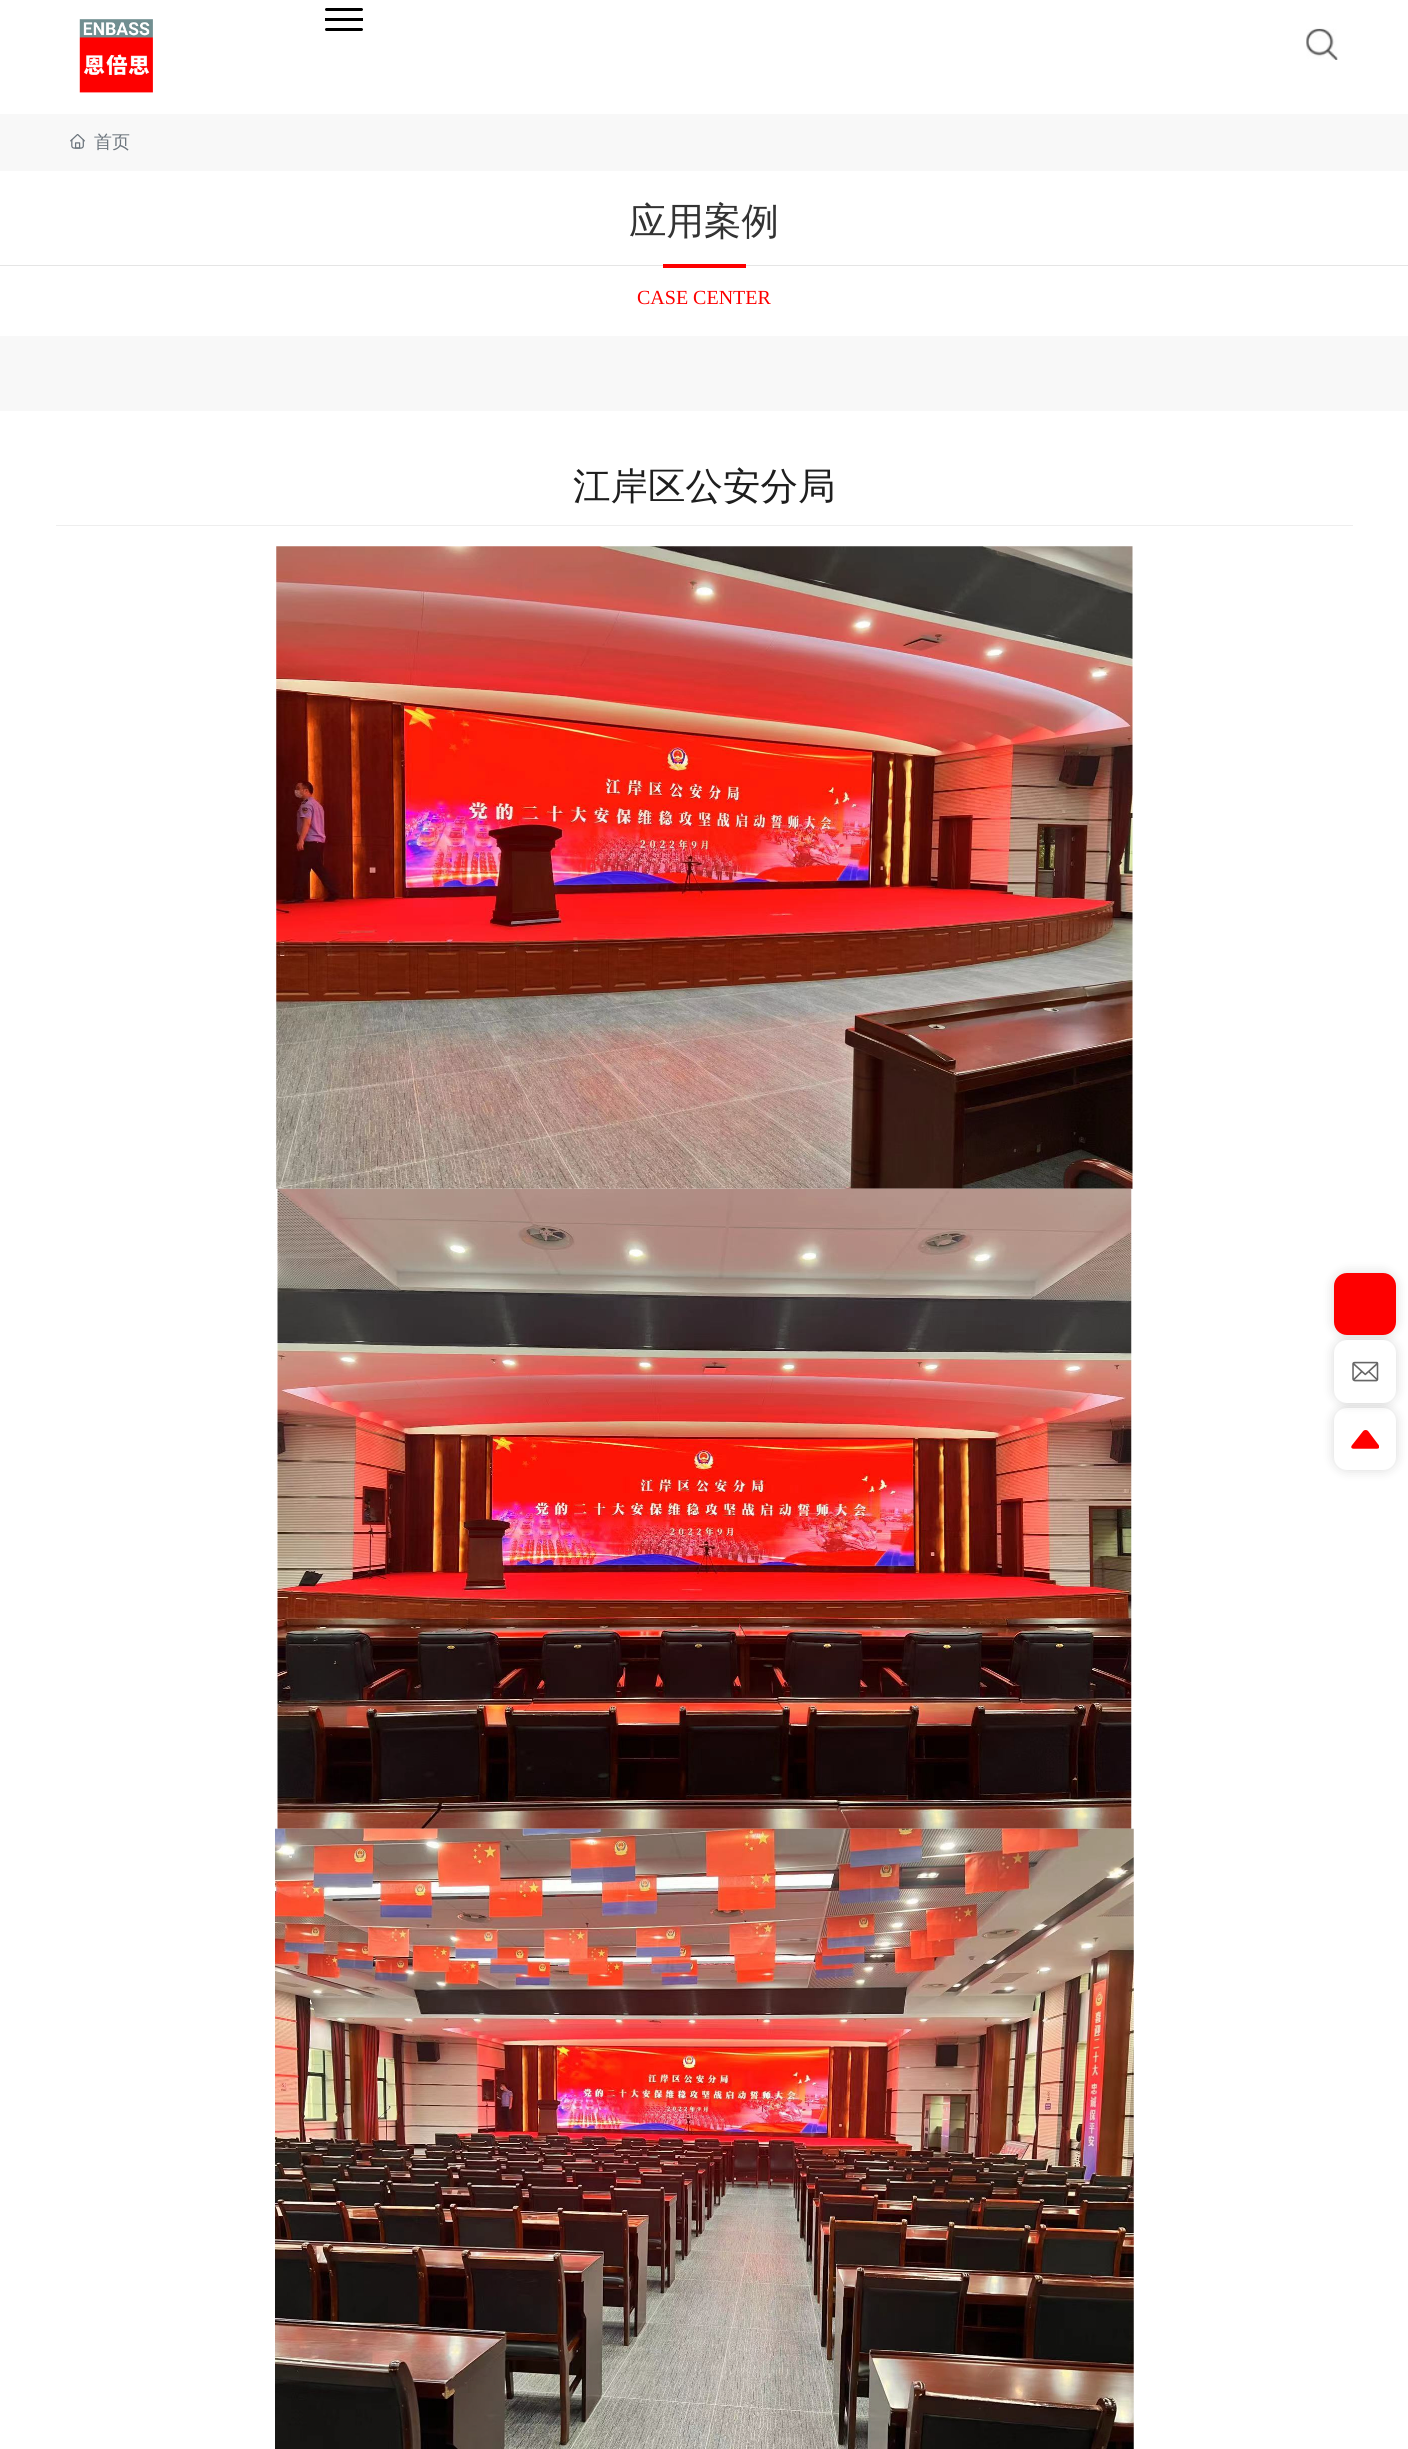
#include <cairo.h>
#include <math.h>
#include <stddef.h>


static void rgb(cairo_t *cr, int r, int g, int b)
{
	cairo_set_source_rgb(cr, r / 255.0, g / 255.0, b / 255.0);
}

static void face(cairo_t *cr, const char *family, double size, int italic, int bold)
{
	cairo_select_font_face(cr, family, italic ? CAIRO_FONT_SLANT_ITALIC : CAIRO_FONT_SLANT_NORMAL,
		bold ? CAIRO_FONT_WEIGHT_BOLD : CAIRO_FONT_WEIGHT_NORMAL);
	cairo_set_font_size(cr, size);
}

static void label(cairo_t *cr, double x, double y, const char *s)
{
	cairo_move_to(cr, x, y);
	cairo_show_text(cr, s);
}

static void rect(cairo_t *cr, double x, double y, double w, double h)
{
	cairo_rectangle(cr, x, y, w, h);
	cairo_fill(cr);
}

static void rrect(cairo_t *cr, double x, double y, double w, double h, double r)
{
	cairo_new_sub_path(cr);
	cairo_arc(cr, x + w - r, y + h - r, r, 0, M_PI / 2);
	cairo_arc(cr, x + r, y + h - r, r, M_PI / 2, M_PI);
	cairo_arc(cr, x + r, y + r, r, M_PI, 1.5 * M_PI);
	cairo_arc(cr, x + w - r, y + r, r, 1.5 * M_PI, 2 * M_PI);
	cairo_close_path(cr);
}

static void soft_shadow(cairo_t *cr, double x, double y, double w, double h, double r, double blur, double alpha)
{
	cairo_push_group_with_content(cr, CAIRO_CONTENT_ALPHA);
	cairo_set_operator(cr, CAIRO_OPERATOR_SOURCE);
	for (int i = 15; i >= -15 && fmin(w, h) + blur * i / 3 > 0; i -= 2) {
		double e = blur * i / 6;
		cairo_set_source_rgba(cr, 0, 0, 0, alpha * erfc((i - 1) / 8.5) / 2);
		rrect(cr, x - e, y - e, w + 2 * e, h + 2 * e, fmax(0, fmin(r + e + blur * .6, fmin(w, h) / 2 + e)));
		cairo_fill(cr);
	}
	cairo_pattern_t *soft = cairo_pop_group(cr);
	cairo_mask(cr, soft);
	cairo_pattern_destroy(soft);
}

static void image(cairo_t *cr, const char *path, double x, double y, double w, double h)
{
	cairo_surface_t *image = cairo_image_surface_create_from_png(path);
	cairo_save(cr);
	cairo_set_source_surface(cr, image, x, y);
	cairo_rectangle(cr, x, y, w, h);
	cairo_fill(cr);
	cairo_restore(cr);
	cairo_surface_destroy(image);
}

static void draw(cairo_t *cr) {
	rgb(cr, 255, 255, 255);
	cairo_paint(cr);
	image(cr, "image0.png", 79, 19, 74, 74);
	rgb(cr, 0, 0, 0);
	rect(cr, 325, 18, 38, 3);
	rrect(cr, 325, 8, 38, 3, 1.5);
	cairo_fill(cr);
	rrect(cr, 325, 28, 38, 3, 1.5);
	cairo_fill(cr);
	image(cr, "image1.png", 1306, 28, 32, 32);
	rgb(cr, 248, 248, 248);
	rect(cr, 0, 114, 1408, 57);
	image(cr, "image2.png", 70, 134, 15, 15);
	face(cr, "WenQuanYi Zen Hei Medium", 18, 0, 0);
	rgb(cr, 108, 117, 125);
	label(cr, 94, 148, "首页");
	face(cr, "WenQuanYi Zen Hei Medium", 37.5, 0, 0);
	rgb(cr, 51, 51, 51);
	label(cr, 629, 234, "应用案例");
	rgb(cr, 229, 229, 229);
	rect(cr, 0, 265, 663, 1);
	rgb(cr, 254, 0, 0);
	rect(cr, 663, 264, 83, 4);
	rgb(cr, 229, 229, 229);
	rect(cr, 746, 265, 662, 1);
	face(cr, "Liberation Serif", 20, 0, 0);
	rgb(cr, 254, 0, 0);
	label(cr, 637, 304, "CASE CENTER");
	rgb(cr, 248, 248, 248);
	rect(cr, 0, 336, 1408, 75);
	face(cr, "WenQuanYi Zen Hei Medium", 37.5, 0, 0);
	rgb(cr, 30, 30, 30);
	label(cr, 573, 499, "江岸区公安分局");
	rgb(cr, 238, 238, 238);
	rect(cr, 56, 525, 1297, 1);
	image(cr, "image3.png", 276, 546, 857, 643);
	image(cr, "image4.png", 277, 1188, 855, 641);
	image(cr, "image5.png", 275, 1828, 859, 621);
	rgb(cr, 0, 0, 0);
	soft_shadow(cr, 1334, 1273, 62, 62, 13, 6, 0.15);
	soft_shadow(cr, 1334, 1408, 62, 62, 13, 6, 0.15);
	rgb(cr, 255, 255, 255);
	rrect(cr, 1334, 1408, 62, 62, 13);
	cairo_fill(cr);
	rgb(cr, 0, 0, 0);
	soft_shadow(cr, 1334, 1340, 62, 63, 13, 6, 0.15);
	rgb(cr, 254, 0, 0);
	rrect(cr, 1334, 1273, 62, 62, 13);
	cairo_fill(cr);
	rgb(cr, 255, 255, 255);
	rrect(cr, 1334, 1340, 62, 63, 13);
	cairo_fill(cr);
	image(cr, "image6.png", 1352, 1361, 27, 21);
	image(cr, "image7.png", 1351, 1430, 28, 19);
}

int main(void) {
	cairo_surface_t *surface = cairo_image_surface_create(CAIRO_FORMAT_RGB24, 1408, 2449);
	cairo_t *cr = cairo_create(surface);
	cairo_font_options_t *options = cairo_font_options_create();
	cairo_font_options_set_hint_metrics(options, CAIRO_HINT_METRICS_OFF);
	cairo_font_options_set_hint_style(options, CAIRO_HINT_STYLE_NONE);
	cairo_set_font_options(cr, options);
	cairo_set_miter_limit(cr, 4);
	draw(cr);
	cairo_surface_write_to_png(surface, "render.png");
	cairo_font_options_destroy(options);
	cairo_destroy(cr);
	cairo_surface_destroy(surface);
	return 0;
}
